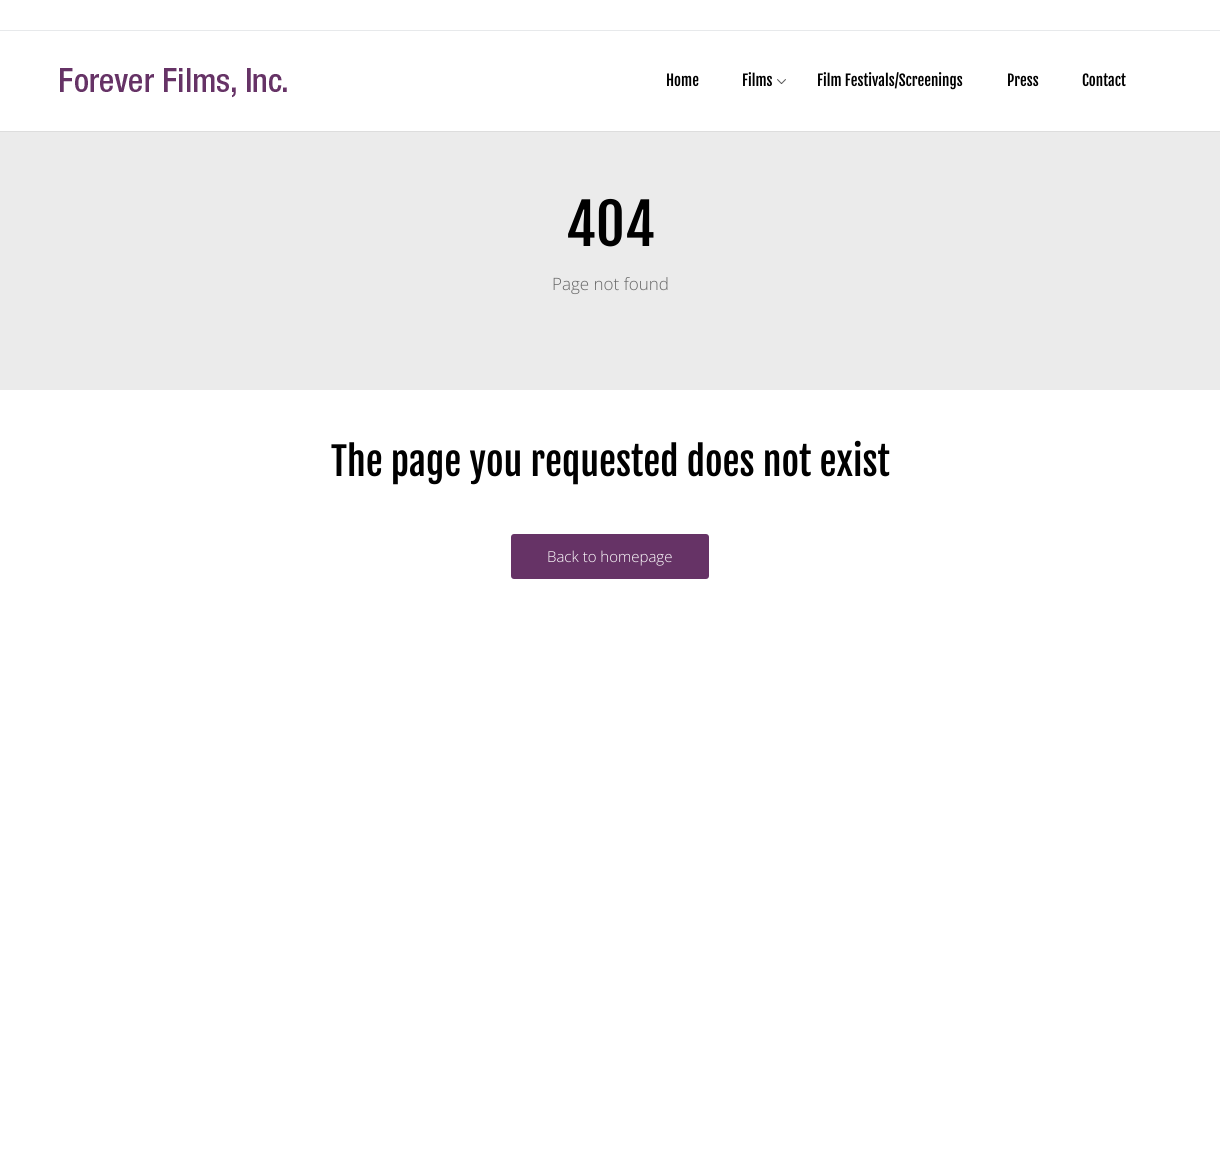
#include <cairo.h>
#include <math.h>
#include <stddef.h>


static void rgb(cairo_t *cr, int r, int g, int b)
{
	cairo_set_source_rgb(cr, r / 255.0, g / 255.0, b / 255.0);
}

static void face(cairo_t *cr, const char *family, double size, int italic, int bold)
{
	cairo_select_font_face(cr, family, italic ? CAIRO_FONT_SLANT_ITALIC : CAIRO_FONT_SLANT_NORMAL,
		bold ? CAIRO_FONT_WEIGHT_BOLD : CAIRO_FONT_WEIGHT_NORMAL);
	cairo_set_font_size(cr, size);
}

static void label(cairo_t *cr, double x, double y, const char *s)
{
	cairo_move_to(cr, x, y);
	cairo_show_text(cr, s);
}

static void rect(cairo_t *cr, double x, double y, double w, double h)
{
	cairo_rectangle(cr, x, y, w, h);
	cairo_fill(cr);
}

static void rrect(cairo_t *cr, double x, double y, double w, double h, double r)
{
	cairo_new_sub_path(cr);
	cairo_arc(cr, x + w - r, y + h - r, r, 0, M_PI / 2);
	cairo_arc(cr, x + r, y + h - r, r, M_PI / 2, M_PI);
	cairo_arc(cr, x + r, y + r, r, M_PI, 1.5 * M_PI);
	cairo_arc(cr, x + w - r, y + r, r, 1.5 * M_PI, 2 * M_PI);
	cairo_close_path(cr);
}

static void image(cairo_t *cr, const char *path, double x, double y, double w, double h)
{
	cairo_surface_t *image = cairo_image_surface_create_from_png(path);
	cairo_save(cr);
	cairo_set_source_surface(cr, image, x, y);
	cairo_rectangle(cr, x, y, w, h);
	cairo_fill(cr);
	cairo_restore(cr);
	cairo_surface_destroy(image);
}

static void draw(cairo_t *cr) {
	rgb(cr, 255, 255, 255);
	cairo_paint(cr);
	rgb(cr, 221, 221, 221);
	rect(cr, 0, 131, 1220, 1);
	rgb(cr, 231, 233, 235);
	rect(cr, 0, 30, 1220, 1);
	image(cr, "image0.png", 60, 68, 227, 30);
	face(cr, "Fjalla One", 15, 0, 0);
	rgb(cr, 0, 0, 0);
	label(cr, 666, 86, "Home");
	image(cr, "image1.png", 777, 79, 9, 5);
	label(cr, 742, 86, "Films");
	label(cr, 817, 86, "Film Festivals/Screenings");
	label(cr, 1007, 86, "Press");
	label(cr, 1082, 86, "Contact");
	rgb(cr, 235, 235, 235);
	rect(cr, 0, 132, 1220, 258);
	face(cr, "Fjalla One", 56, 0, 0);
	rgb(cr, 0, 0, 0);
	label(cr, 566, 246, "404");
	face(cr, "Open Sans Light", 17, 0, 0);
	rgb(cr, 102, 102, 102);
	label(cr, 552, 290, "Page not found");
	face(cr, "Fjalla One", 38, 0, 0);
	rgb(cr, 0, 0, 0);
	label(cr, 331, 476, "The page you requested does not exist");
	rgb(cr, 102, 51, 102);
	rrect(cr, 511, 534, 198, 45, 3);
	cairo_fill(cr);
	face(cr, "Open Sans Light", 15, 0, 0);
	rgb(cr, 255, 255, 255);
	label(cr, 547, 562, "Back to homepage");
}

int main(void) {
	cairo_surface_t *surface = cairo_image_surface_create(CAIRO_FORMAT_RGB24, 1220, 1151);
	cairo_t *cr = cairo_create(surface);
	cairo_font_options_t *options = cairo_font_options_create();
	cairo_font_options_set_hint_metrics(options, CAIRO_HINT_METRICS_OFF);
	cairo_font_options_set_hint_style(options, CAIRO_HINT_STYLE_NONE);
	cairo_set_font_options(cr, options);
	cairo_set_miter_limit(cr, 4);
	draw(cr);
	cairo_surface_write_to_png(surface, "render.png");
	cairo_font_options_destroy(options);
	cairo_destroy(cr);
	cairo_surface_destroy(surface);
	return 0;
}
